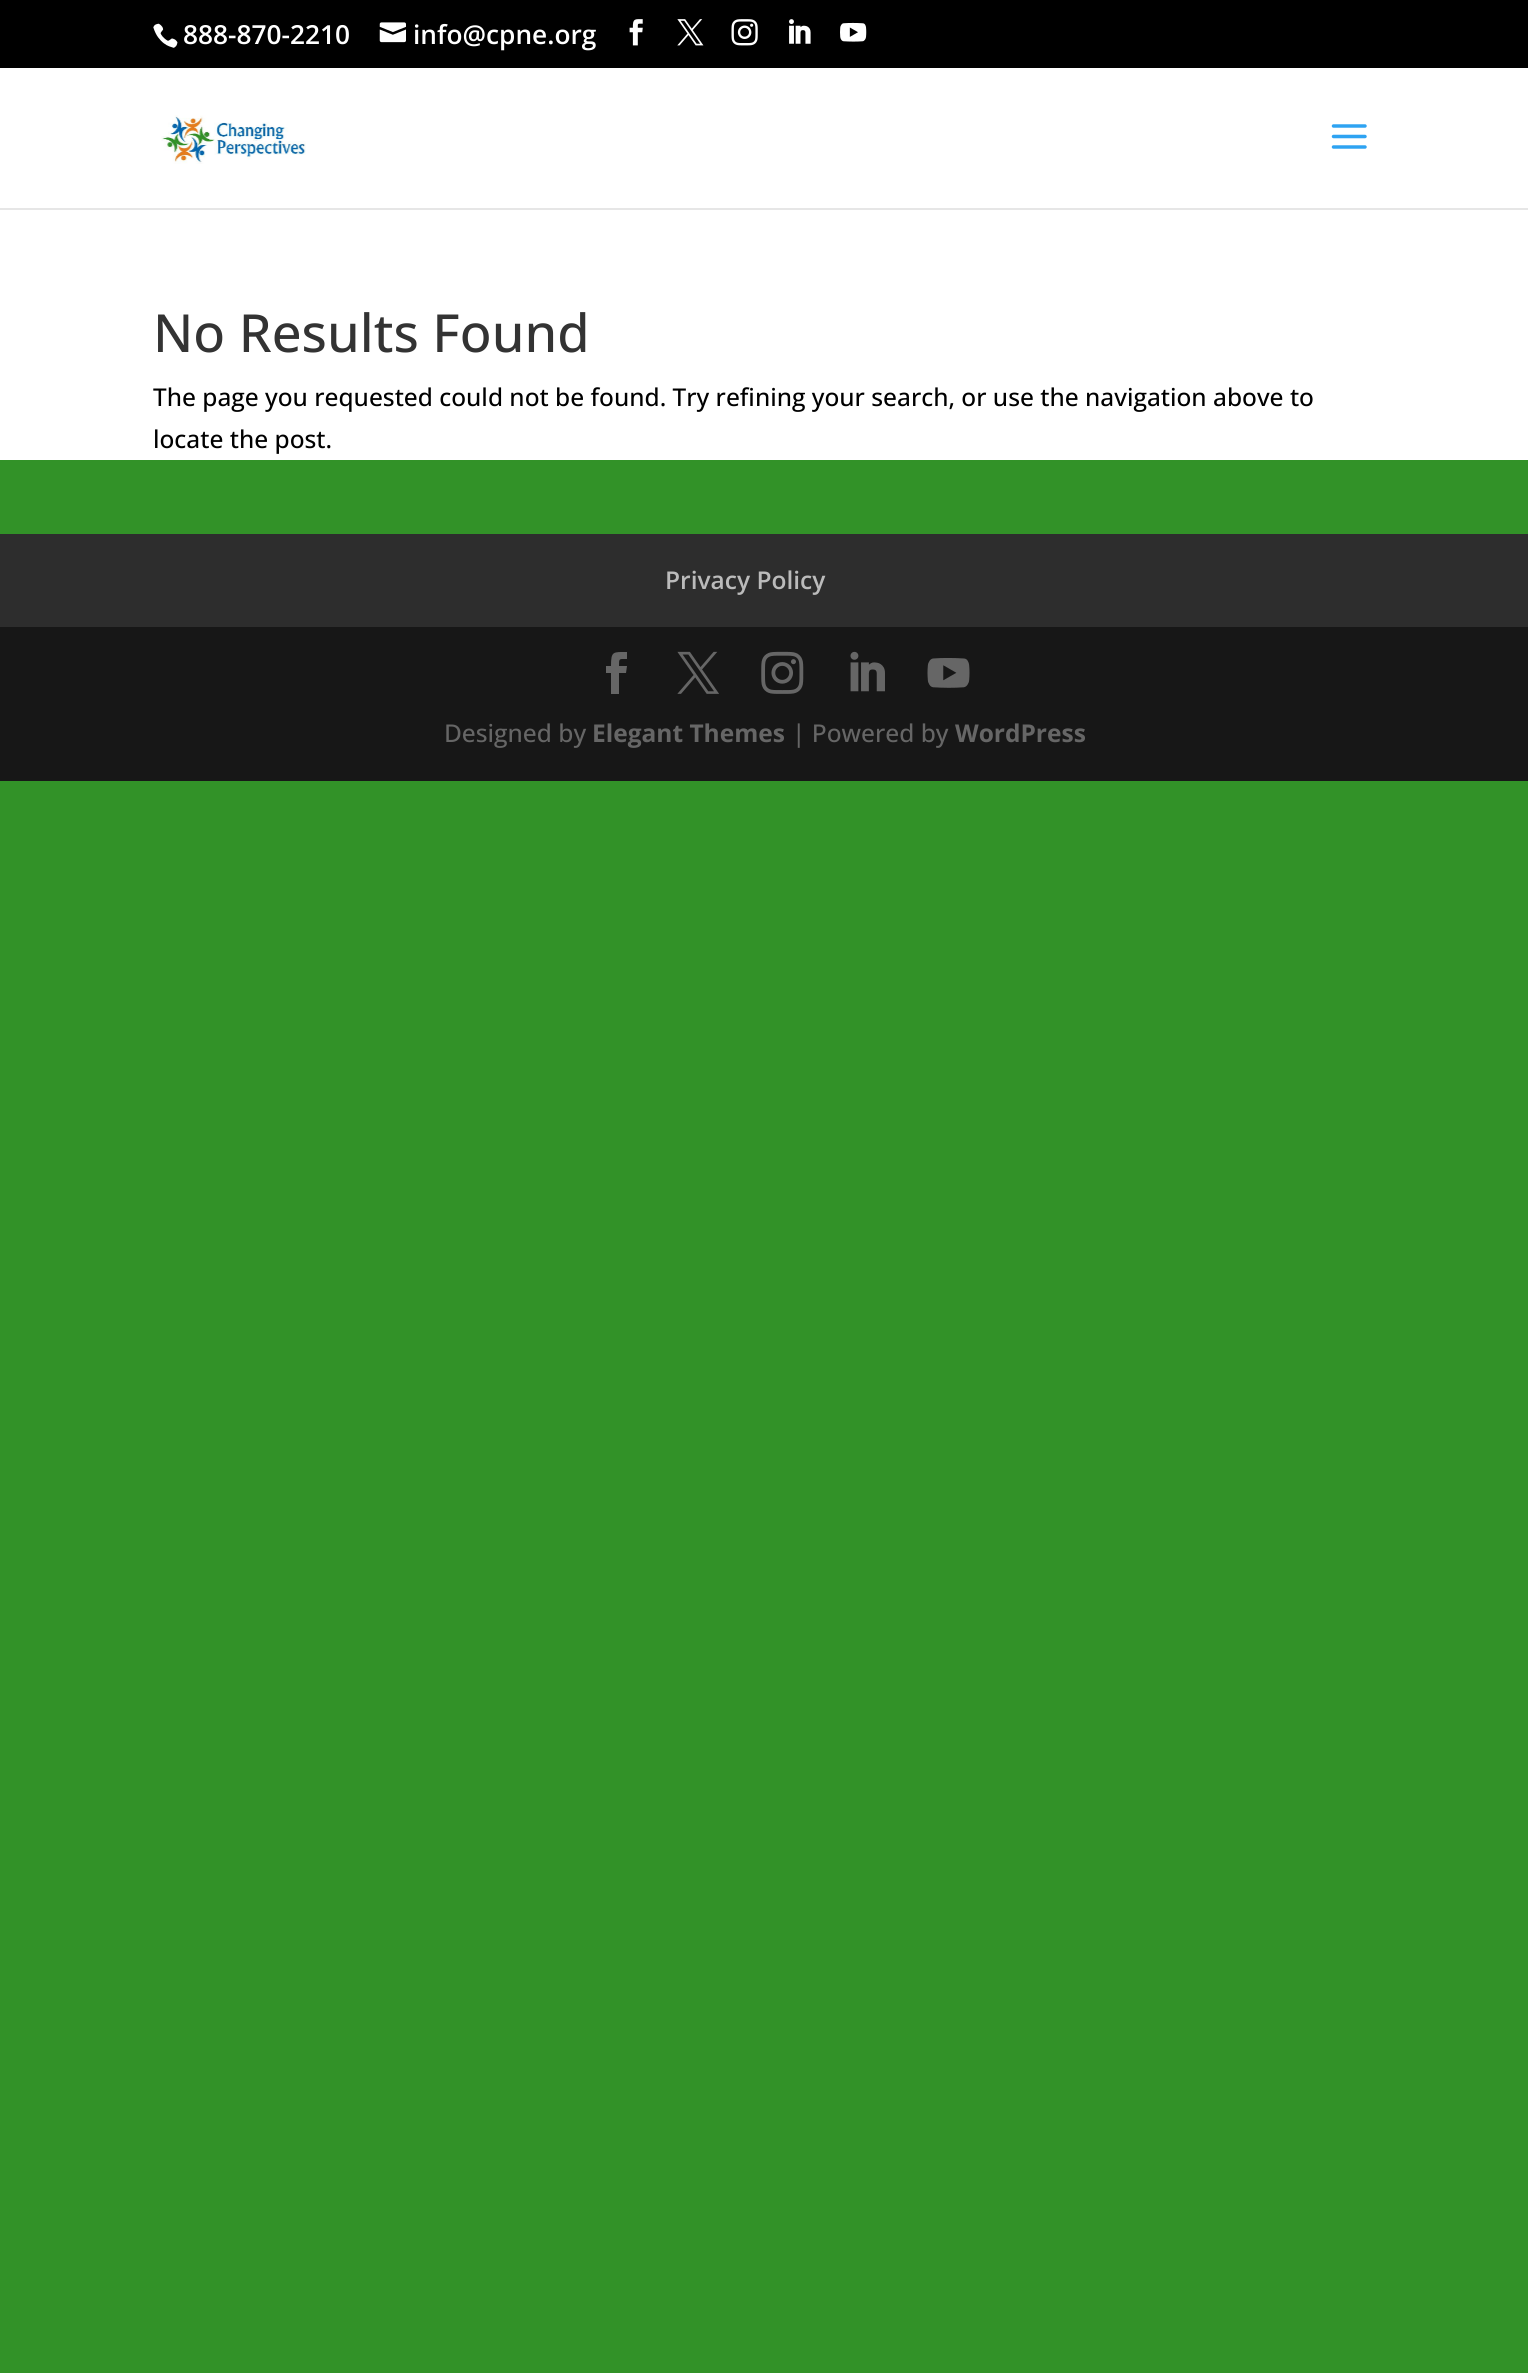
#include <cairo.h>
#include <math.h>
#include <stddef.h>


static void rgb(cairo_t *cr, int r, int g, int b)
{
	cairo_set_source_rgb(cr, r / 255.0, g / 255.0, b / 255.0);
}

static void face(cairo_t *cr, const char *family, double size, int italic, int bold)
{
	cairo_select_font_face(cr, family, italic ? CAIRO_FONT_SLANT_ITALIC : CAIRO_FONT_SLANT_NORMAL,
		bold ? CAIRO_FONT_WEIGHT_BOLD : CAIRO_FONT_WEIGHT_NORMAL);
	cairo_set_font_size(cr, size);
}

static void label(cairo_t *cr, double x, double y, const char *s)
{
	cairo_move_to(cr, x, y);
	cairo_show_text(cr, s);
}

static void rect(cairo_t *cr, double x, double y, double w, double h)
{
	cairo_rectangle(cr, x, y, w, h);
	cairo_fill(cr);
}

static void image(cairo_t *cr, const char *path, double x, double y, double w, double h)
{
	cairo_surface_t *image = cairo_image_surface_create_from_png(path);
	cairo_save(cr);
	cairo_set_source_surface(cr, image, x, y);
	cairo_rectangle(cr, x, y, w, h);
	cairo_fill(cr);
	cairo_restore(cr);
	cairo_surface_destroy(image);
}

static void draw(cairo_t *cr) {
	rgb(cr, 50, 146, 40);
	cairo_paint(cr);
	rgb(cr, 0, 0, 0);
	rect(cr, 0, 0, 1528, 68);
	image(cr, "image0.png", 153, 23, 25, 25);
	face(cr, "Open Sans SemiBold", 26.25, 0, 0);
	rgb(cr, 255, 255, 255);
	label(cr, 183, 44, "888-870-2210");
	image(cr, "image1.png", 379, 22, 27, 21);
	label(cr, 413, 44, "info@cpne.org");
	image(cr, "image2.png", 629, 19, 14, 27);
	image(cr, "image3.png", 677, 19, 27, 27);
	image(cr, "image4.png", 731, 19, 27, 27);
	image(cr, "image5.png", 789, 19, 22, 25);
	image(cr, "image6.png", 840, 22, 27, 20);
	rgb(cr, 230, 230, 230);
	cairo_new_path(cr);
	cairo_move_to(cr, 0, 208);
	cairo_line_to(cr, 0, 210);
	cairo_line_to(cr, 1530, 210);
	cairo_line_to(cr, 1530, 70);
	cairo_line_to(cr, 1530, 208);
	cairo_close_path(cr);
	cairo_fill(cr);
	rgb(cr, 255, 255, 255);
	rect(cr, 0, 68, 1528, 140);
	image(cr, "image7.png", 161, 115, 145, 49);
	image(cr, "image8.png", 1331, 124, 36, 25);
	rect(cr, 0, 210, 1528, 250);
	face(cr, "Open Sans Medium", 52.5, 0, 0);
	rgb(cr, 51, 51, 51);
	label(cr, 153, 352, "No Results Found");
	face(cr, "Open Sans Medium", 24.5, 0, 0);
	rgb(cr, 0, 0, 0);
	label(cr, 153, 406, "The page you requested could not be found. Try refining your search, or use the navigation above to");
	label(cr, 153, 448, "locate the post.");
	rgb(cr, 45, 45, 45);
	rect(cr, 0, 534, 1528, 93);
	face(cr, "Open Sans SemiBold", 24.5, 0, 0);
	rgb(cr, 187, 187, 187);
	label(cr, 665, 589, "Privacy Policy");
	rgb(cr, 23, 23, 23);
	rect(cr, 0, 627, 1528, 154);
	rgb(cr, 102, 102, 102);
	cairo_new_path(cr);
	cairo_move_to(cr, 611, 694);
	cairo_line_to(cr, 619, 694);
	cairo_line_to(cr, 619, 673);
	cairo_line_to(cr, 626, 673);
	cairo_line_to(cr, 627, 666);
	cairo_line_to(cr, 619, 666);
	cairo_curve_to(cr, 619, 658, 619, 659, 627, 659);
	cairo_line_to(cr, 627, 652);
	cairo_curve_to(cr, 613, 652, 611, 651, 611, 666);
	cairo_line_to(cr, 606, 666);
	cairo_line_to(cr, 606, 673);
	cairo_line_to(cr, 611, 673);
	cairo_close_path(cr);
	cairo_fill(cr);
	image(cr, "image9.png", 677, 651, 42, 43);
	image(cr, "image10.png", 761, 651, 43, 43);
	image(cr, "image11.png", 850, 651, 35, 41);
	image(cr, "image12.png", 927, 658, 43, 30);
	face(cr, "Open Sans Medium", 24.5, 0, 0);
	label(cr, 444, 742, "Designed by");
	face(cr, "Open Sans", 24.5, 0, 1);
	label(cr, 592, 742, "Elegant Themes");
	face(cr, "Open Sans Medium", 24.5, 0, 0);
	label(cr, 792, 742, "| Powered by");
	face(cr, "Open Sans", 24.5, 0, 1);
	label(cr, 955, 742, "WordPress");
}

int main(void) {
	cairo_surface_t *surface = cairo_image_surface_create(CAIRO_FORMAT_RGB24, 1528, 2373);
	cairo_t *cr = cairo_create(surface);
	cairo_font_options_t *options = cairo_font_options_create();
	cairo_font_options_set_hint_metrics(options, CAIRO_HINT_METRICS_OFF);
	cairo_font_options_set_hint_style(options, CAIRO_HINT_STYLE_NONE);
	cairo_set_font_options(cr, options);
	cairo_set_miter_limit(cr, 4);
	draw(cr);
	cairo_surface_write_to_png(surface, "render.png");
	cairo_font_options_destroy(options);
	cairo_destroy(cr);
	cairo_surface_destroy(surface);
	return 0;
}
